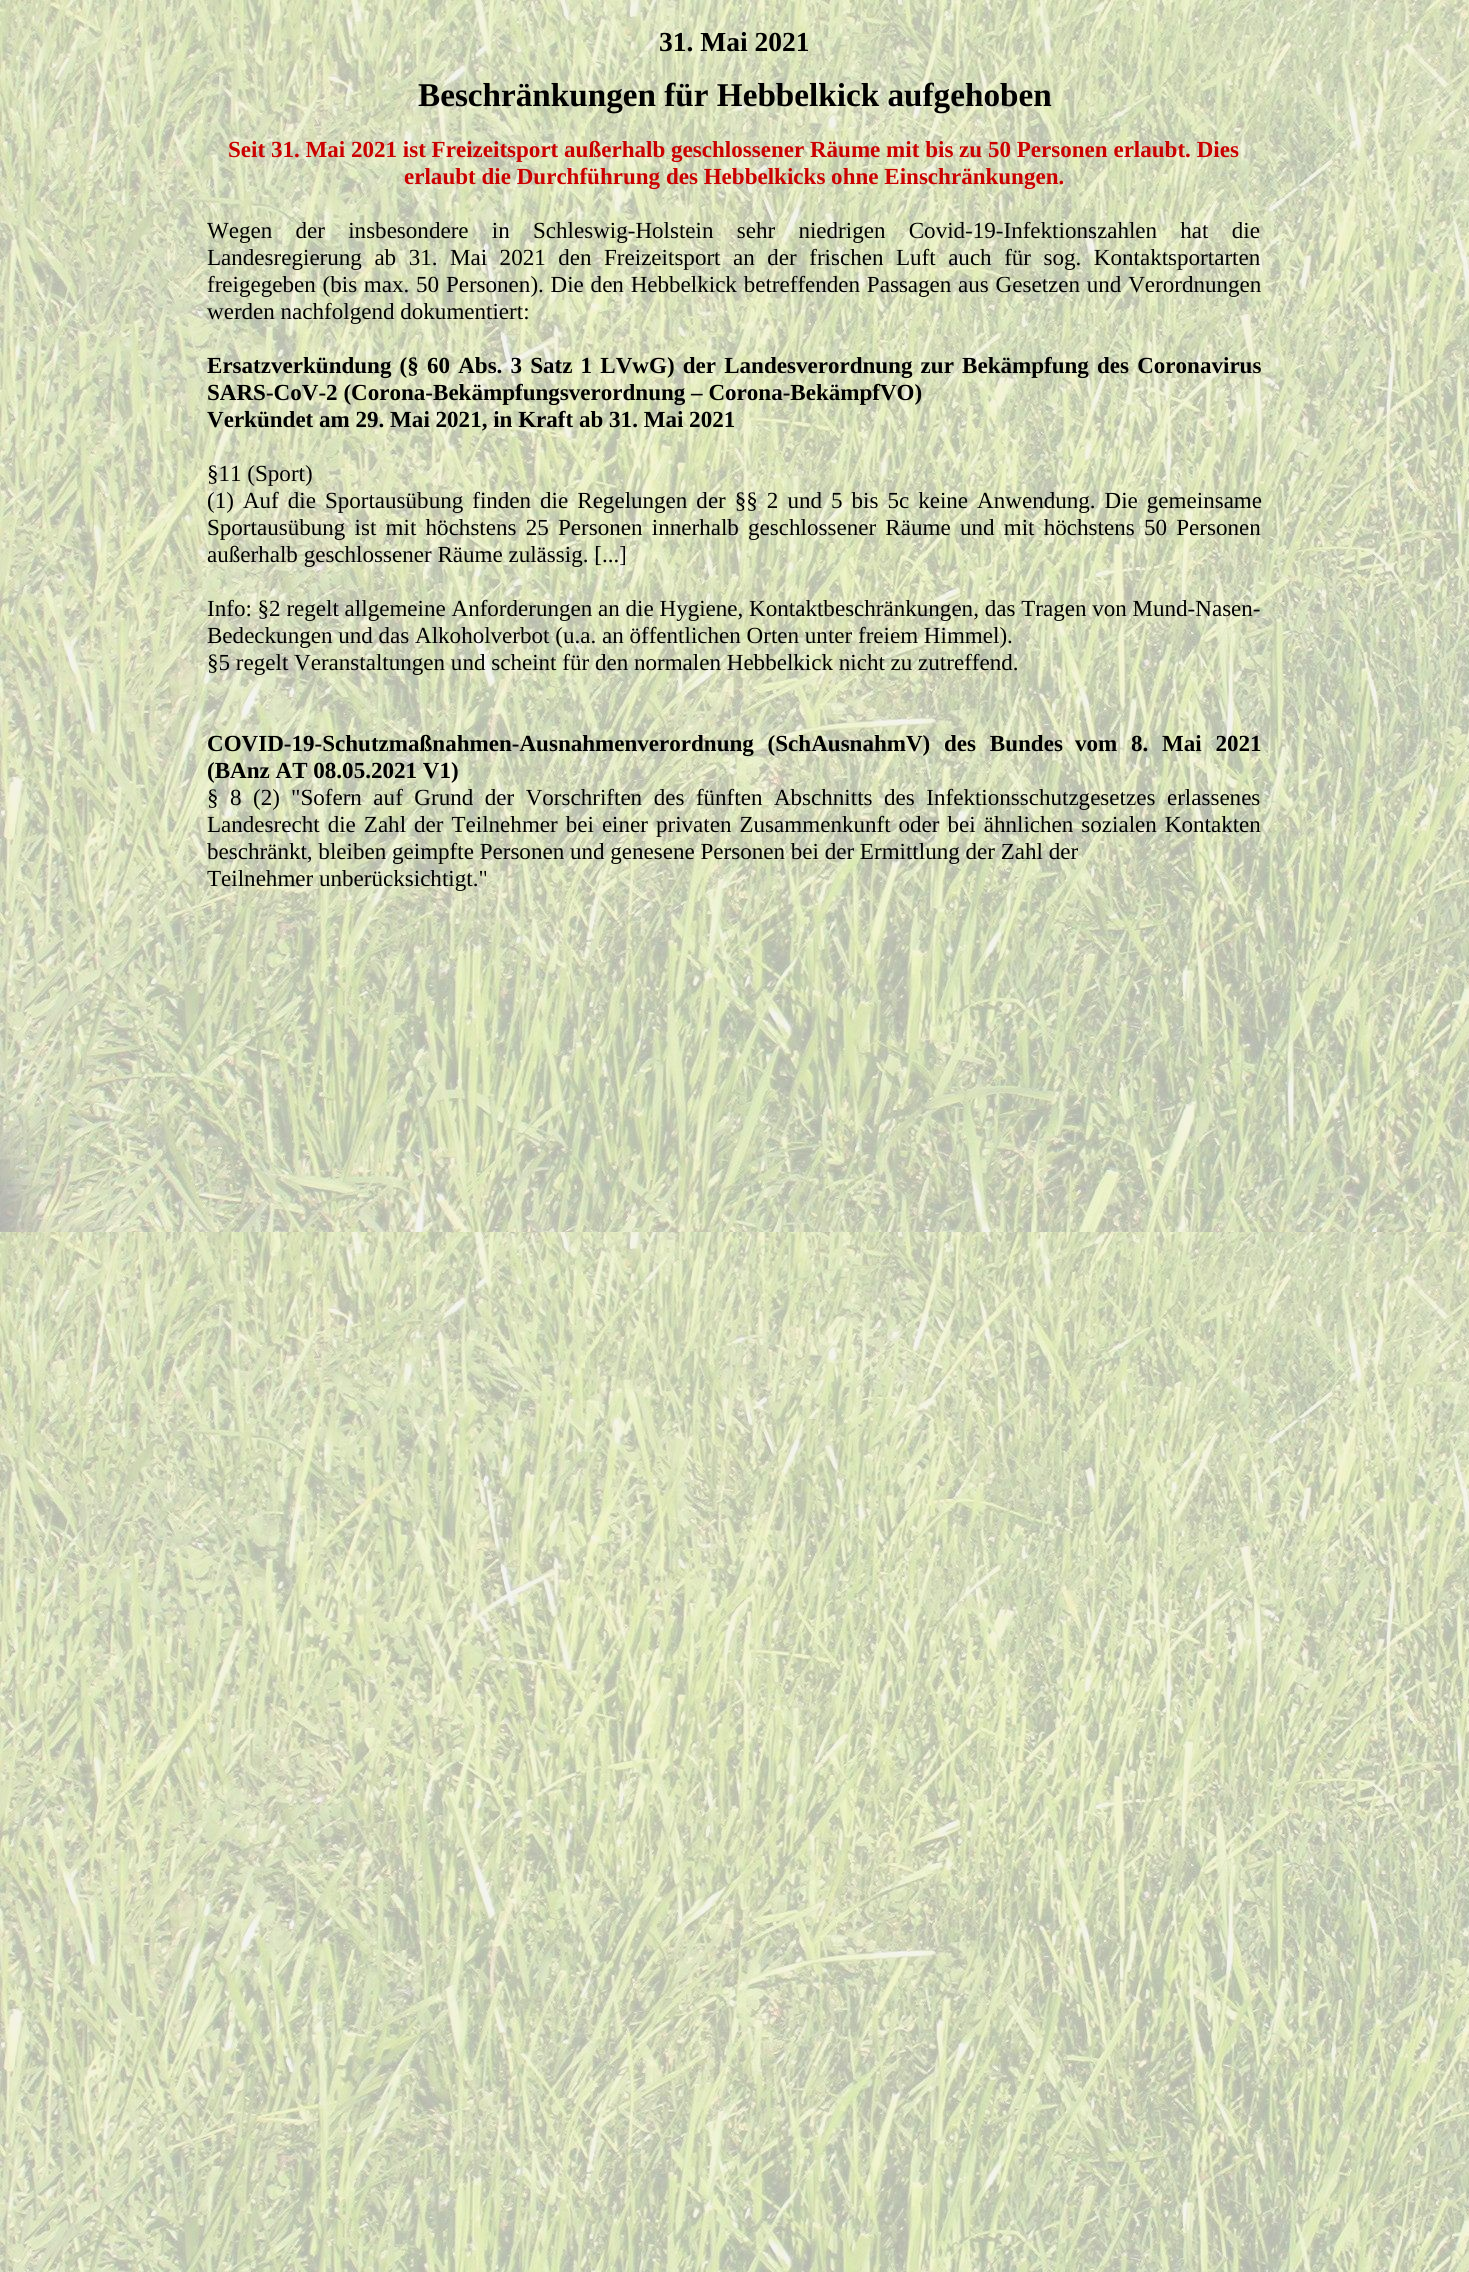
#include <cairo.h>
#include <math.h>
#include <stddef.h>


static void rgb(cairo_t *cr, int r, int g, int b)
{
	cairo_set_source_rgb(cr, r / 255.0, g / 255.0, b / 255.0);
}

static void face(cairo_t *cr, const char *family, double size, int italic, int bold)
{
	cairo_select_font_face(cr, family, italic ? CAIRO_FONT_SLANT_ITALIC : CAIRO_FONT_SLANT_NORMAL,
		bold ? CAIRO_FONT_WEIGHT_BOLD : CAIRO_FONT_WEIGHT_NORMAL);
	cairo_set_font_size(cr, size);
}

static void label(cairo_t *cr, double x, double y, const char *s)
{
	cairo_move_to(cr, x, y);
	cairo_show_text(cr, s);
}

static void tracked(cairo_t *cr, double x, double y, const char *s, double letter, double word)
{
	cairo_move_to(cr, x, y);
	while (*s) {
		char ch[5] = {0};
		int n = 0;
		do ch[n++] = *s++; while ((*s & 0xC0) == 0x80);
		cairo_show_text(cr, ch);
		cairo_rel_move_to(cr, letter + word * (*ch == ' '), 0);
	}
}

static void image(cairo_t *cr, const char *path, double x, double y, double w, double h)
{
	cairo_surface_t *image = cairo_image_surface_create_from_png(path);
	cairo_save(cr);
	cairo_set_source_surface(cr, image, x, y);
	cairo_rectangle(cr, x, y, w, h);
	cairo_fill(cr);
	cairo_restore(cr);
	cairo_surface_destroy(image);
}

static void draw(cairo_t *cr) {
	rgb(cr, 255, 255, 255);
	cairo_paint(cr);
	image(cr, "image0.png", 0, 0, 1469, 2272);
	face(cr, "Liberation Serif", 27.5, 0, 1);
	rgb(cr, 0, 0, 0);
	label(cr, 659, 51, "31. Mai 2021");
	face(cr, "Liberation Serif", 33.2, 0, 1);
	label(cr, 418, 106, "Beschränkungen für Hebbelkick aufgehoben");
	face(cr, "Liberation Serif", 23.05, 0, 1);
	rgb(cr, 204, 0, 0);
	label(cr, 228, 157, "Seit 31. Mai 2021 ist Freizeitsport außerhalb geschlossener Räume mit bis zu 50 Personen erlaubt. Dies");
	label(cr, 404, 184, "erlaubt die Durchführung des Hebbelkicks ohne Einschränkungen.");
	face(cr, "Liberation Serif", 23.05, 0, 0);
	rgb(cr, 0, 0, 0);
	tracked(cr, 207, 238, "Wegen der insbesondere in Schleswig-Holstein sehr niedrigen Covid-19-Infektionszahlen hat die", 0, 17.5);
	tracked(cr, 207, 265, "Landesregierung ab 31. Mai 2021 den Freizeitsport an der frischen Luft auch für sog. Kontaktsportarten", 0, 6.75);
	tracked(cr, 207, 292, "freigegeben (bis max. 50 Personen). Die den Hebbelkick betreffenden Passagen aus Gesetzen und Verordnungen", 0, 1);
	label(cr, 207, 319, "werden nachfolgend dokumentiert:");
	face(cr, "Liberation Serif", 23.05, 0, 1);
	tracked(cr, 207, 373, "Ersatzverkündung (§ 60 Abs. 3 Satz 1 LVwG) der Landesverordnung zur Bekämpfung des Coronavirus", 0, 2.4);
	label(cr, 207, 400, "SARS-CoV-2 (Corona-Bekämpfungsverordnung – Corona-BekämpfVO)");
	label(cr, 207, 427, "Verkündet am 29. Mai 2021, in Kraft ab 31. Mai 2021");
	face(cr, "Liberation Serif", 23.05, 0, 0);
	label(cr, 207, 481, "§11 (Sport)");
	tracked(cr, 207, 508, "(1) Auf die Sportausübung finden die Regelungen der §§ 2 und 5 bis 5c keine Anwendung. Die gemeinsame", 0, 3.25);
	tracked(cr, 207, 535, "Sportausübung ist mit höchstens 25 Personen innerhalb geschlossener Räume und mit höchstens 50 Personen", 0, 3.5);
	label(cr, 207, 562, "außerhalb geschlossener Räume zulässig. [...]");
	label(cr, 207, 616, "Info: §2 regelt allgemeine Anforderungen an die Hygiene, Kontaktbeschränkungen, das Tragen von Mund-Nasen-");
	label(cr, 207, 643, "Bedeckungen und das Alkoholverbot (u.a. an öffentlichen Orten unter freiem Himmel).");
	label(cr, 207, 670, "§5 regelt Veranstaltungen und scheint für den normalen Hebbelkick nicht zu zutreffend.");
	face(cr, "Liberation Serif", 23.05, 0, 1);
	tracked(cr, 207, 751, "COVID-19-Schutzmaßnahmen-Ausnahmenverordnung (SchAusnahmV) des Bundes", 0, 8);
	tracked(cr, 1075, 751, "vom 8. Mai 2021", 0, 8);
	label(cr, 207, 778, "(BAnz AT 08.05.2021 V1)");
	face(cr, "Liberation Serif", 23.05, 0, 0);
	tracked(cr, 207, 805, "§ 8 (2)", 0, 5.75);
	tracked(cr, 291, 805, "\"Sofern auf Grund der Vorschriften des fünften Abschnitts des Infektionsschutzgesetzes erlassenes", 0, 5.75);
	tracked(cr, 207, 832, "Landesrecht die Zahl der Teilnehmer bei einer privaten Zusammenkunft oder bei ähnlichen sozialen Kontakten", 0, 2.25);
	label(cr, 207, 859, "beschränkt, bleiben geimpfte Personen und genesene Personen bei der Ermittlung der Zahl der");
	label(cr, 207, 886, "Teilnehmer unberücksichtigt.\"");
}

int main(void) {
	cairo_surface_t *surface = cairo_image_surface_create(CAIRO_FORMAT_RGB24, 1469, 2272);
	cairo_t *cr = cairo_create(surface);
	cairo_font_options_t *options = cairo_font_options_create();
	cairo_font_options_set_hint_metrics(options, CAIRO_HINT_METRICS_OFF);
	cairo_font_options_set_hint_style(options, CAIRO_HINT_STYLE_NONE);
	cairo_set_font_options(cr, options);
	cairo_set_miter_limit(cr, 4);
	draw(cr);
	cairo_surface_write_to_png(surface, "render.png");
	cairo_font_options_destroy(options);
	cairo_destroy(cr);
	cairo_surface_destroy(surface);
	return 0;
}
